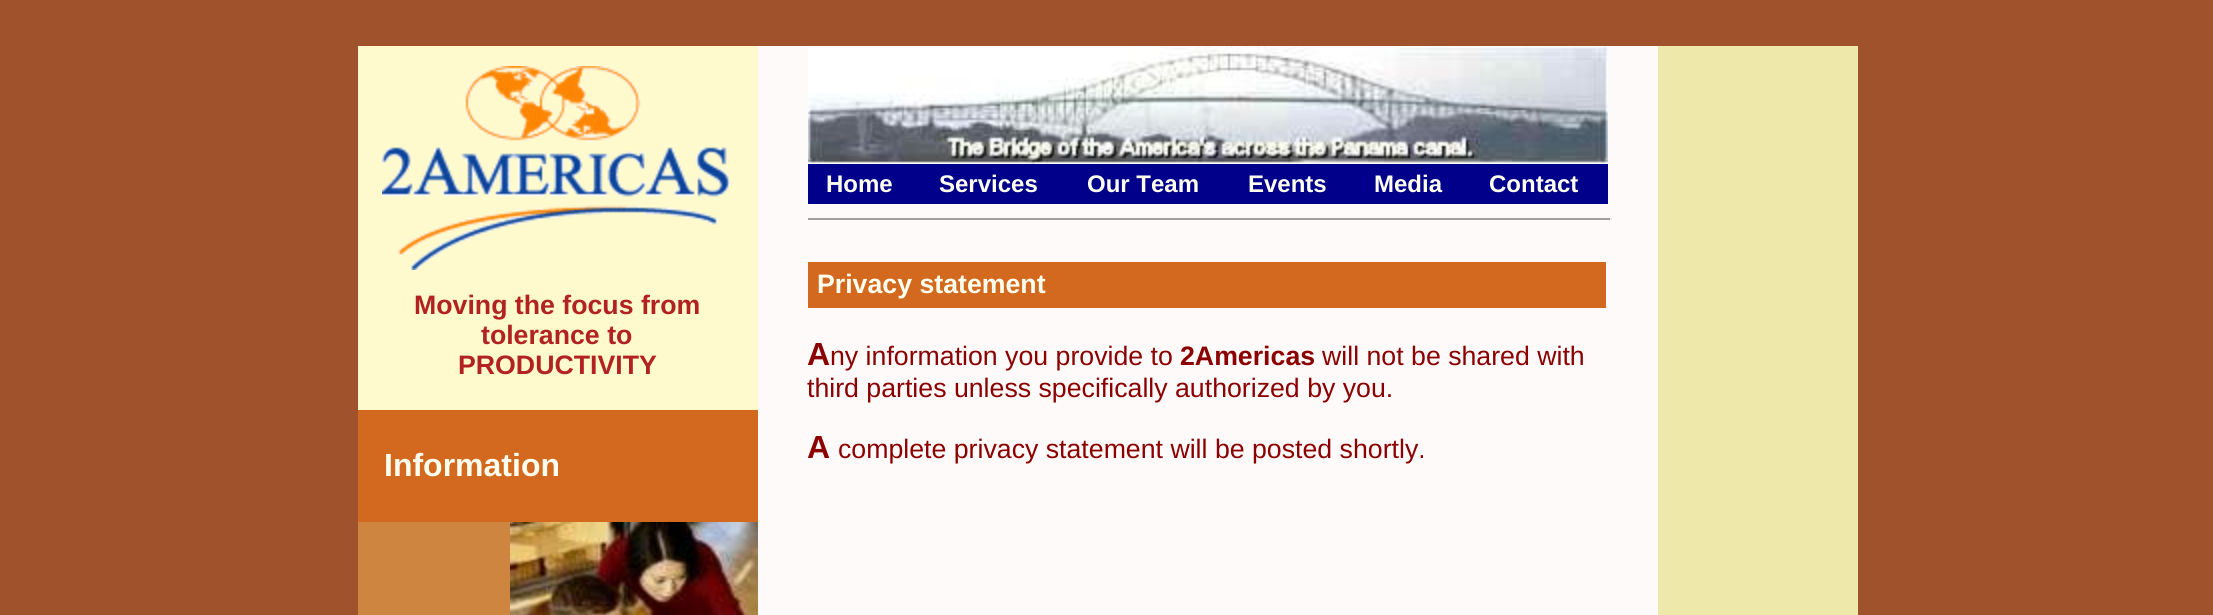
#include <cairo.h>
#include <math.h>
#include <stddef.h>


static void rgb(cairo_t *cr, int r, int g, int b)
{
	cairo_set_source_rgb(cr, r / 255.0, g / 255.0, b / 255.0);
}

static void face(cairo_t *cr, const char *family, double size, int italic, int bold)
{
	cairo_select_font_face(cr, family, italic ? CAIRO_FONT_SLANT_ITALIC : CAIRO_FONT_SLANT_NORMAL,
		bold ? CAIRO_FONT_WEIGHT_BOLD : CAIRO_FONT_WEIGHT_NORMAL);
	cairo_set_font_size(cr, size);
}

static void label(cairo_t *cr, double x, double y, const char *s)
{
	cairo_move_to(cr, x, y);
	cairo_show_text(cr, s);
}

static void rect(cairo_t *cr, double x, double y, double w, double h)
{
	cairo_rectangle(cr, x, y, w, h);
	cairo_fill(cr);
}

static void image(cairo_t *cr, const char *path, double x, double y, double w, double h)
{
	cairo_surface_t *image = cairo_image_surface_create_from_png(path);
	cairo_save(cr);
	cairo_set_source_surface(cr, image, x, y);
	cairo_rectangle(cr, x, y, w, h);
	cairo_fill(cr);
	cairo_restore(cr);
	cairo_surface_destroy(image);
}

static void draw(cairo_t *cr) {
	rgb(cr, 160, 82, 45);
	cairo_paint(cr);
	rgb(cr, 255, 250, 205);
	rect(cr, 358, 46, 400, 364);
	image(cr, "image0.png", 382, 66, 349, 204);
	face(cr, "Liberation Sans", 26.7, 0, 1);
	rgb(cr, 178, 34, 34);
	label(cr, 414, 314, "Moving the focus from");
	label(cr, 481, 344, "tolerance to");
	label(cr, 458, 374, "PRODUCTIVITY");
	rgb(cr, 210, 105, 30);
	rect(cr, 358, 410, 400, 112);
	face(cr, "Liberation Sans", 32, 0, 1);
	rgb(cr, 255, 255, 240);
	label(cr, 384, 476, "Information");
	rgb(cr, 205, 133, 63);
	rect(cr, 358, 522, 152, 93);
	image(cr, "image1.png", 510, 522, 248, 93);
	rgb(cr, 255, 250, 250);
	rect(cr, 758, 46, 50, 569);
	rect(cr, 808, 204, 800, 411);
	image(cr, "image2.png", 808, 46, 800, 118);
	rgb(cr, 0, 0, 139);
	rect(cr, 808, 164, 800, 40);
	face(cr, "Liberation Sans", 24, 0, 1);
	rgb(cr, 255, 255, 240);
	label(cr, 826, 192, "Home");
	label(cr, 939, 192, "Services");
	label(cr, 1087, 192, "Our Team");
	label(cr, 1248, 192, "Events");
	label(cr, 1374, 192, "Media");
	label(cr, 1489, 192, "Contact");
	rgb(cr, 255, 250, 250);
	rect(cr, 1608, 46, 50, 569);
	rgb(cr, 159, 159, 159);
	rect(cr, 808, 218, 804, 2);
	rgb(cr, 238, 238, 238);
	rect(cr, 1610, 218, 2, 2);
	rgb(cr, 210, 105, 30);
	rect(cr, 808, 262, 798, 46);
	face(cr, "Liberation Sans", 26.7, 0, 1);
	rgb(cr, 255, 255, 240);
	label(cr, 817, 293, "Privacy statement");
	face(cr, "Liberation Sans", 32, 0, 1);
	rgb(cr, 139, 0, 0);
	label(cr, 807, 365, "A");
	face(cr, "Liberation Sans", 26.7, 0, 0);
	label(cr, 830, 365, "ny information you provide to");
	face(cr, "Liberation Sans", 26.7, 0, 1);
	label(cr, 1180, 365, "2Americas");
	face(cr, "Liberation Sans", 26.7, 0, 0);
	label(cr, 1322, 365, "will not be shared with");
	label(cr, 807, 397, "third parties unless specifically authorized by you.");
	face(cr, "Liberation Sans", 32, 0, 1);
	label(cr, 807, 458, "A");
	face(cr, "Liberation Sans", 26.7, 0, 0);
	label(cr, 838, 458, "complete privacy statement will be posted shortly.");
	rgb(cr, 238, 232, 170);
	rect(cr, 1658, 46, 200, 569);
}

int main(void) {
	cairo_surface_t *surface = cairo_image_surface_create(CAIRO_FORMAT_RGB24, 2213, 615);
	cairo_t *cr = cairo_create(surface);
	cairo_font_options_t *options = cairo_font_options_create();
	cairo_font_options_set_hint_metrics(options, CAIRO_HINT_METRICS_OFF);
	cairo_font_options_set_hint_style(options, CAIRO_HINT_STYLE_NONE);
	cairo_set_font_options(cr, options);
	cairo_set_miter_limit(cr, 4);
	draw(cr);
	cairo_surface_write_to_png(surface, "render.png");
	cairo_font_options_destroy(options);
	cairo_destroy(cr);
	cairo_surface_destroy(surface);
	return 0;
}
